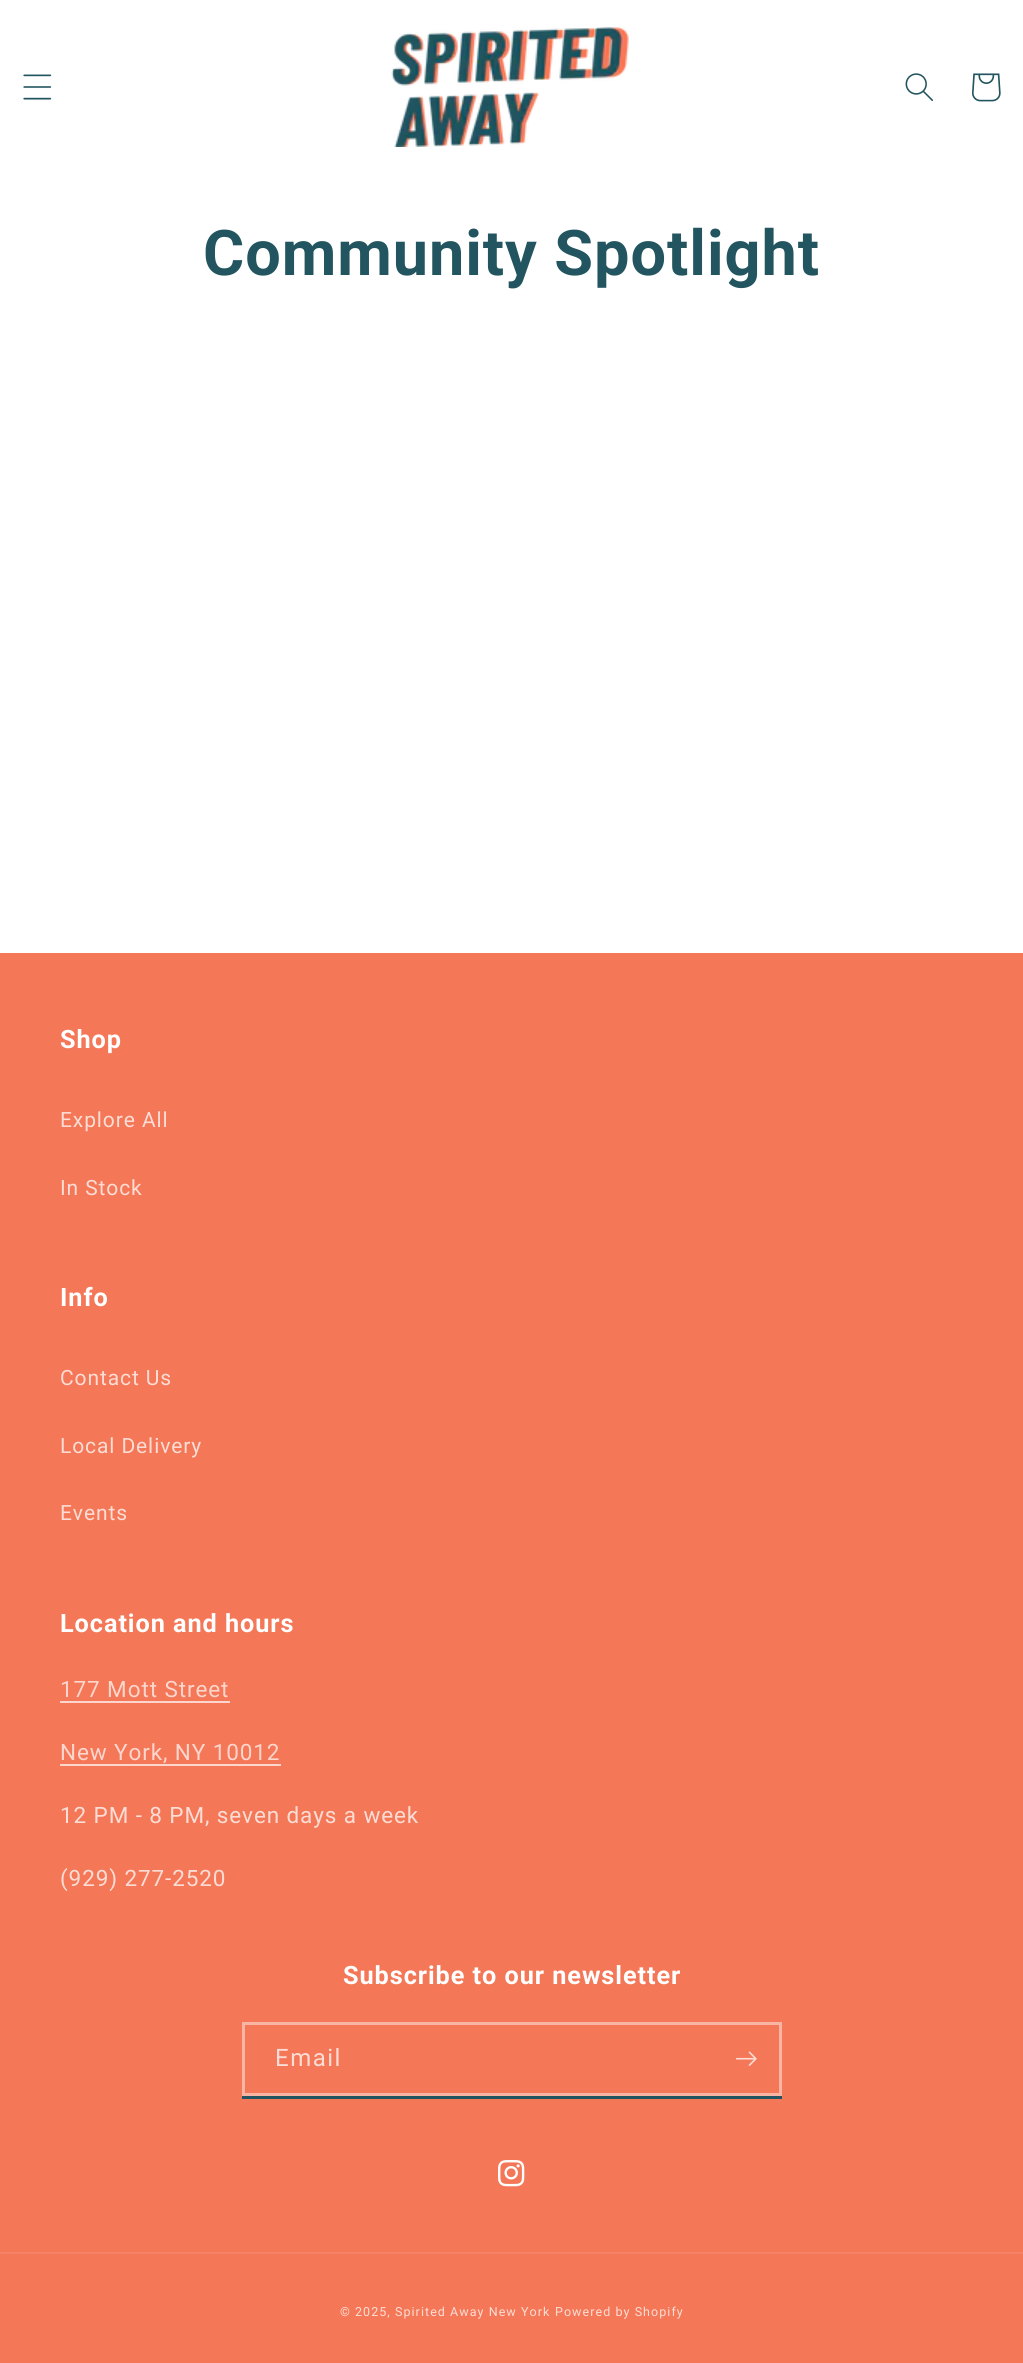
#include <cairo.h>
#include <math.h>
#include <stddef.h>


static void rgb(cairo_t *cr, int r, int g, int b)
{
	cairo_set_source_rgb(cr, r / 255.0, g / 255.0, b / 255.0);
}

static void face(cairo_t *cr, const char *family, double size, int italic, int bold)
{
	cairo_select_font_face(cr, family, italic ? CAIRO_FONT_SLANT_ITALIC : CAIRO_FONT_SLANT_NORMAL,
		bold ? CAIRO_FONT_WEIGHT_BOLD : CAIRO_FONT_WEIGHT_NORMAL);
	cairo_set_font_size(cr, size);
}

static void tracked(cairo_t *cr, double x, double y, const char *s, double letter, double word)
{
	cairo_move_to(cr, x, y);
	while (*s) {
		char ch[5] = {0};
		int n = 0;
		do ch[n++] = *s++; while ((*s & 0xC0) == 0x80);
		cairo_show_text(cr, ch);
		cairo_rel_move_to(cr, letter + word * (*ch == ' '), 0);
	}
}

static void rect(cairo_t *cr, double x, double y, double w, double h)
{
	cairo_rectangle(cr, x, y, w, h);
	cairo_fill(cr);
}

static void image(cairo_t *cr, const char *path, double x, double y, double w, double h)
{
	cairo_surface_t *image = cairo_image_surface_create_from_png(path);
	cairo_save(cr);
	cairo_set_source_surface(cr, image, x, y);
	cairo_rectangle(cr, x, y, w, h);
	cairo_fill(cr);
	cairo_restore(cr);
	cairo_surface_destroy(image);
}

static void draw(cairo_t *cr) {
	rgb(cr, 255, 255, 255);
	cairo_paint(cr);
	image(cr, "image0.png", 23, 74, 29, 26);
	image(cr, "image1.png", 391, 27, 238, 120);
	image(cr, "image2.png", 905, 73, 28, 28);
	image(cr, "image3.png", 972, 73, 29, 29);
	face(cr, "Roboto", 63, 0, 1);
	rgb(cr, 34, 85, 95);
	tracked(cr, 203, 275, "Community Spotlight", 0.95, 0);
	rgb(cr, 244, 119, 87);
	rect(cr, 0, 953, 1023, 1410);
	face(cr, "Roboto", 25.25, 0, 1);
	rgb(cr, 255, 255, 255);
	tracked(cr, 60, 1048, "Shop", 0.95, 0);
	face(cr, "Roboto", 21, 0, 0);
	rgb(cr, 252, 221, 213);
	tracked(cr, 60, 1127, "Explore All", 0.9, 0);
	tracked(cr, 60, 1195, "In Stock", 0.9, 0);
	face(cr, "Roboto", 25.25, 0, 1);
	rgb(cr, 255, 255, 255);
	tracked(cr, 60, 1306, "Info", 0.95, 0);
	face(cr, "Roboto", 21, 0, 0);
	rgb(cr, 252, 221, 213);
	tracked(cr, 60, 1385, "Contact Us", 0.9, 0);
	tracked(cr, 60, 1453, "Local Delivery", 0.9, 0);
	tracked(cr, 60, 1520, "Events", 0.9, 0);
	face(cr, "Roboto", 25.25, 0, 1);
	rgb(cr, 255, 255, 255);
	tracked(cr, 60, 1632, "Location and hours", 0.95, 0);
	face(cr, "Roboto", 22.5, 0, 0);
	rgb(cr, 252, 214, 205);
	tracked(cr, 60, 1697, "177 Mott Street", 0.9, 0);
	rect(cr, 60, 1701, 170, 2);
	tracked(cr, 60, 1760, "New York, NY 10012", 0.9, 0);
	rect(cr, 60, 1764, 221, 2);
	rgb(cr, 252, 221, 213);
	tracked(cr, 60, 1823, "12 PM - 8 PM, seven days a week", 0.9, 0);
	tracked(cr, 60, 1886, "(929) 277-2520", 0.9, 0);
	face(cr, "Roboto", 25.25, 0, 1);
	rgb(cr, 255, 255, 255);
	tracked(cr, 343, 1984, "Subscribe to our newsletter", 0.95, 0);
	cairo_rectangle(cr, 243.5, 2023.5, 537, 71);
	rgb(cr, 249, 180, 163);
	cairo_set_line_width(cr, 3);
	cairo_stroke(cr);
	face(cr, "Roboto", 24, 0, 0);
	rgb(cr, 252, 221, 213);
	tracked(cr, 275, 2066, "Email", 1.5, 0);
	image(cr, "image4.png", 735, 2051, 22, 15);
	rgb(cr, 34, 85, 95);
	cairo_new_path(cr);
	cairo_move_to(cr, 242, 2096);
	cairo_line_to(cr, 242, 2099);
	cairo_line_to(cr, 782, 2099);
	cairo_line_to(cr, 782, 2025);
	cairo_line_to(cr, 782, 2096);
	cairo_close_path(cr);
	cairo_fill(cr);
	image(cr, "image5.png", 498, 2160, 27, 27);
	rgb(cr, 245, 130, 100);
	rect(cr, 0, 2252, 1023, 2);
	face(cr, "Roboto", 12.5, 0, 0);
	rgb(cr, 252, 221, 213);
	tracked(cr, 340, 2316, "© 2025, Spirited Away New York", 1.05, 0);
	tracked(cr, 555, 2316, "Powered by Shopify", 1.05, 0);
}

int main(void) {
	cairo_surface_t *surface = cairo_image_surface_create(CAIRO_FORMAT_RGB24, 1023, 2363);
	cairo_t *cr = cairo_create(surface);
	cairo_font_options_t *options = cairo_font_options_create();
	cairo_font_options_set_hint_metrics(options, CAIRO_HINT_METRICS_OFF);
	cairo_font_options_set_hint_style(options, CAIRO_HINT_STYLE_NONE);
	cairo_set_font_options(cr, options);
	cairo_set_miter_limit(cr, 4);
	draw(cr);
	cairo_surface_write_to_png(surface, "render.png");
	cairo_font_options_destroy(options);
	cairo_destroy(cr);
	cairo_surface_destroy(surface);
	return 0;
}
